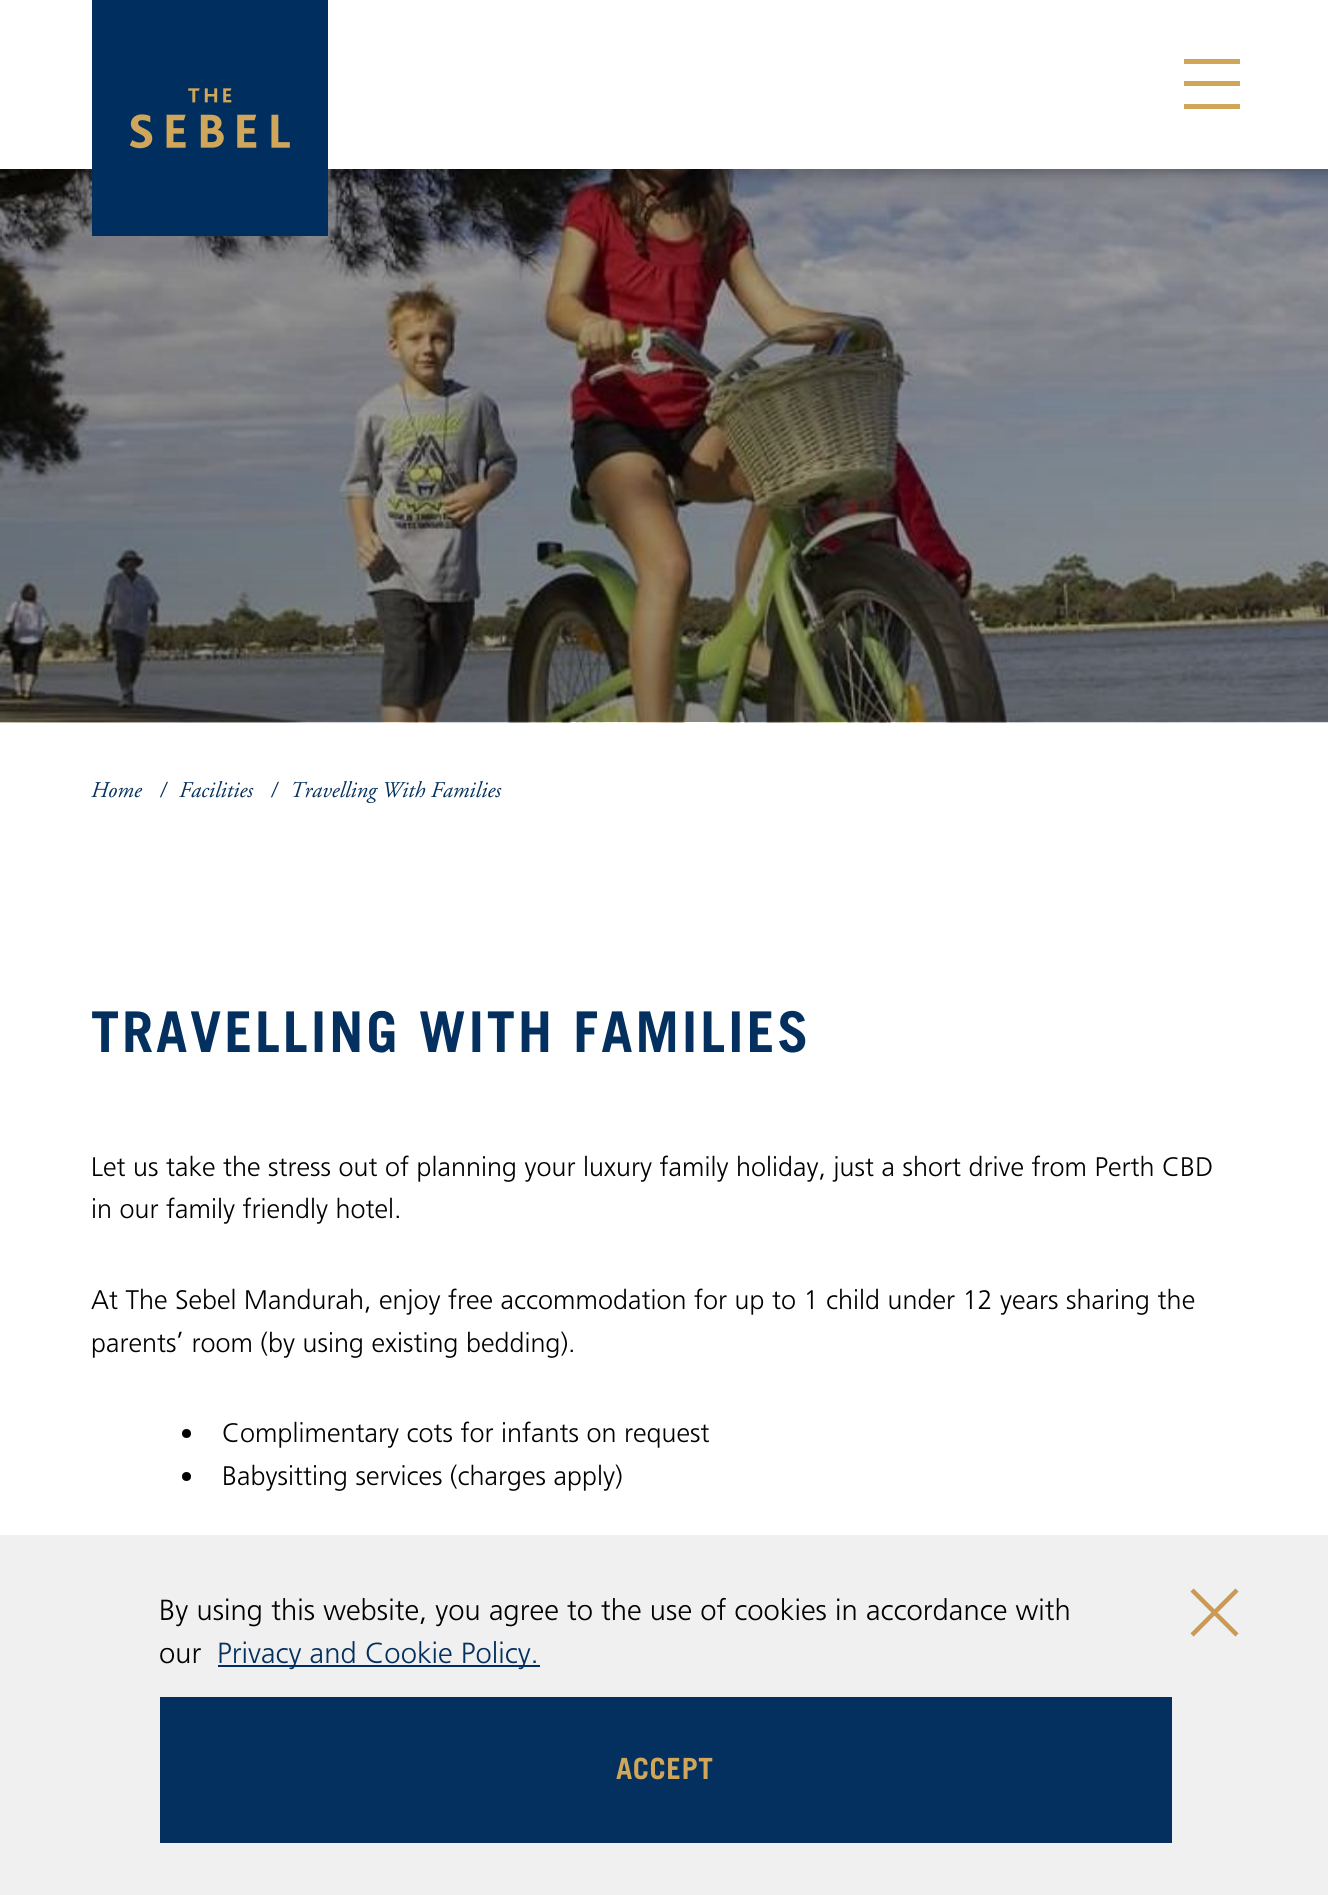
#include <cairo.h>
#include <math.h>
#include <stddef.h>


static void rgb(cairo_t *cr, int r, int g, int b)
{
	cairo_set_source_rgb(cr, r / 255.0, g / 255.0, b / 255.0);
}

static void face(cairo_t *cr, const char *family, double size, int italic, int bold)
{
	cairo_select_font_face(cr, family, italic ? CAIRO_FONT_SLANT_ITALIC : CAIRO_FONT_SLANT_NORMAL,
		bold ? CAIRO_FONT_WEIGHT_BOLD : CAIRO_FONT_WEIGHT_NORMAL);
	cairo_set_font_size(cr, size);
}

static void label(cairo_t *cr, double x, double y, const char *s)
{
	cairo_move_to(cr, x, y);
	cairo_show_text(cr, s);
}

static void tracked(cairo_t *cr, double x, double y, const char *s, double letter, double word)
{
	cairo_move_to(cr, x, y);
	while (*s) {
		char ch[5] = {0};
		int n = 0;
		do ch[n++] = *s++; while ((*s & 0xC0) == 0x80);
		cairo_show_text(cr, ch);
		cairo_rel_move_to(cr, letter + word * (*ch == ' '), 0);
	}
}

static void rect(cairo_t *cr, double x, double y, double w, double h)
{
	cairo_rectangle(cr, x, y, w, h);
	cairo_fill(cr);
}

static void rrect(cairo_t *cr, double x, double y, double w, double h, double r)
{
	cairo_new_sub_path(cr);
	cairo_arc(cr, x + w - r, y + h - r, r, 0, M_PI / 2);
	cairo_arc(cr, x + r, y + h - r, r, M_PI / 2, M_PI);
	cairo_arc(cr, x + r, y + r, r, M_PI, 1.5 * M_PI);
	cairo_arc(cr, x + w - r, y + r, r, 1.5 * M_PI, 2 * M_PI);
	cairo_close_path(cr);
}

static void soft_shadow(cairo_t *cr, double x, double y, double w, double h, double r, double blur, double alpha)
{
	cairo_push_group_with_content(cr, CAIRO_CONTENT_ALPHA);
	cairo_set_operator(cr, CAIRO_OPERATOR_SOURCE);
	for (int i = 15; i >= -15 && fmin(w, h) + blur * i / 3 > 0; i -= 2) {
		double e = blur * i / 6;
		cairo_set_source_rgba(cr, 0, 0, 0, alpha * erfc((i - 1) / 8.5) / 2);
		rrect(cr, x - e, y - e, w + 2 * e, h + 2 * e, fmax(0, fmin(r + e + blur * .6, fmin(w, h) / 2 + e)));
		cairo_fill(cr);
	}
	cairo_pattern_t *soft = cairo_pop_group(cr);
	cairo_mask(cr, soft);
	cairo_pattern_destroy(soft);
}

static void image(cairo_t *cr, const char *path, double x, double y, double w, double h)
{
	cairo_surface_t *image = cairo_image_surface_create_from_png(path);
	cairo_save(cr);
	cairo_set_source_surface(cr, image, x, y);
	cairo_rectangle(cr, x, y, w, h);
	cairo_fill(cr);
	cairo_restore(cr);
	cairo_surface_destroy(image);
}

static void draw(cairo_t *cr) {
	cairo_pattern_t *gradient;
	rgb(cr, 255, 255, 255);
	cairo_paint(cr);
	image(cr, "image1.png", 0, 169, 1328, 554);
	gradient = cairo_pattern_create_linear(665, 49, 665, 722);
	cairo_pattern_add_color_stop_rgba(gradient, 0, 0, 0, 0, 0);
	cairo_pattern_add_color_stop_rgba(gradient, 1, 0, 0, 0, 0.45);
	cairo_set_source(cr, gradient);
	cairo_pattern_destroy(gradient);
	rect(cr, 0, 169, 1328, 553);
	gradient = cairo_pattern_create_linear(665, 115, 665, 646);
	cairo_pattern_add_color_stop_rgba(gradient, 0, 0, 0, 0, 0.32);
	cairo_pattern_add_color_stop_rgba(gradient, 1, 0, 0, 0, 0);
	cairo_set_source(cr, gradient);
	cairo_pattern_destroy(gradient);
	rect(cr, 0, 169, 1328, 441);
	rgb(cr, 0, 0, 0);
	soft_shadow(cr, 0, 2, 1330, 169, 0, 8, 0.35);
	rgb(cr, 255, 255, 255);
	rect(cr, 0, 0, 1328, 169);
	image(cr, "image0.png", 92, 0, 236, 236);
	rgb(cr, 208, 166, 90);
	rect(cr, 1184, 59, 56, 5);
	rect(cr, 1184, 81, 56, 5);
	rect(cr, 1184, 104, 56, 5);
	face(cr, "Adobe Garamond", 22.5, 1, 0);
	rgb(cr, 3, 48, 94);
	label(cr, 91, 797, "Home");
	label(cr, 160, 797, "/");
	label(cr, 179, 797, "Facilities");
	label(cr, 271, 797, "/");
	label(cr, 290, 797, "Travelling With Families");
	face(cr, "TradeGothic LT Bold", 56.25, 0, 1);
	tracked(cr, 91, 1052, "TRAVELLING WITH FAMILIES", 2.8, 0);
	face(cr, "Frutiger Light", 27, 0, 0);
	rgb(cr, 0, 0, 0);
	label(cr, 91, 1176, "Let us take the stress out of planning your luxury family holiday, just a short drive from Perth CBD");
	label(cr, 91, 1218, "in our family friendly hotel.");
	label(cr, 91, 1309, "At The Sebel Mandurah, enjoy free accommodation for up to 1 child under 12 years sharing the");
	label(cr, 91, 1352, "parents’ room (by using existing bedding).");
	cairo_new_path(cr);
	cairo_arc(cr, 186.5, 1433.5, 4.5, 0, 2 * M_PI);
	cairo_fill(cr);
	label(cr, 222, 1442, "Complimentary cots for infants on request");
	cairo_new_path(cr);
	cairo_arc(cr, 186.5, 1476.5, 4.5, 0, 2 * M_PI);
	cairo_fill(cr);
	label(cr, 222, 1485, "Babysitting services (charges apply)");
	rgb(cr, 240, 240, 240);
	rect(cr, 0, 1535, 1328, 360);
	face(cr, "Frutiger Light", 29.25, 0, 0);
	rgb(cr, 0, 0, 0);
	label(cr, 159, 1620, "By using this website, you agree to the use of cookies in accordance with");
	label(cr, 159, 1663, "our");
	rgb(cr, 0, 47, 95);
	rect(cr, 218, 1665, 322, 2);
	rgb(cr, 3, 48, 94);
	label(cr, 217, 1663, "Privacy and Cookie Policy.");
	cairo_new_path(cr);
	cairo_move_to(cr, 1192, 1590);
	cairo_line_to(cr, 1237, 1635);
	cairo_move_to(cr, 1237, 1590);
	cairo_line_to(cr, 1192, 1635);
	rgb(cr, 203, 155, 86);
	cairo_set_line_width(cr, 4.5);
	cairo_stroke(cr);
	rgb(cr, 3, 48, 94);
	rect(cr, 160, 1697, 1012, 146);
	face(cr, "TradeGothic LT Bold", 29.25, 0, 1);
	rgb(cr, 208, 166, 90);
	tracked(cr, 616, 1779, "ACCEPT", 0.5, 0);
}

int main(void) {
	cairo_surface_t *surface = cairo_image_surface_create(CAIRO_FORMAT_RGB24, 1328, 1895);
	cairo_t *cr = cairo_create(surface);
	cairo_font_options_t *options = cairo_font_options_create();
	cairo_font_options_set_hint_metrics(options, CAIRO_HINT_METRICS_OFF);
	cairo_font_options_set_hint_style(options, CAIRO_HINT_STYLE_NONE);
	cairo_set_font_options(cr, options);
	cairo_set_miter_limit(cr, 4);
	draw(cr);
	cairo_surface_write_to_png(surface, "render.png");
	cairo_font_options_destroy(options);
	cairo_destroy(cr);
	cairo_surface_destroy(surface);
	return 0;
}
